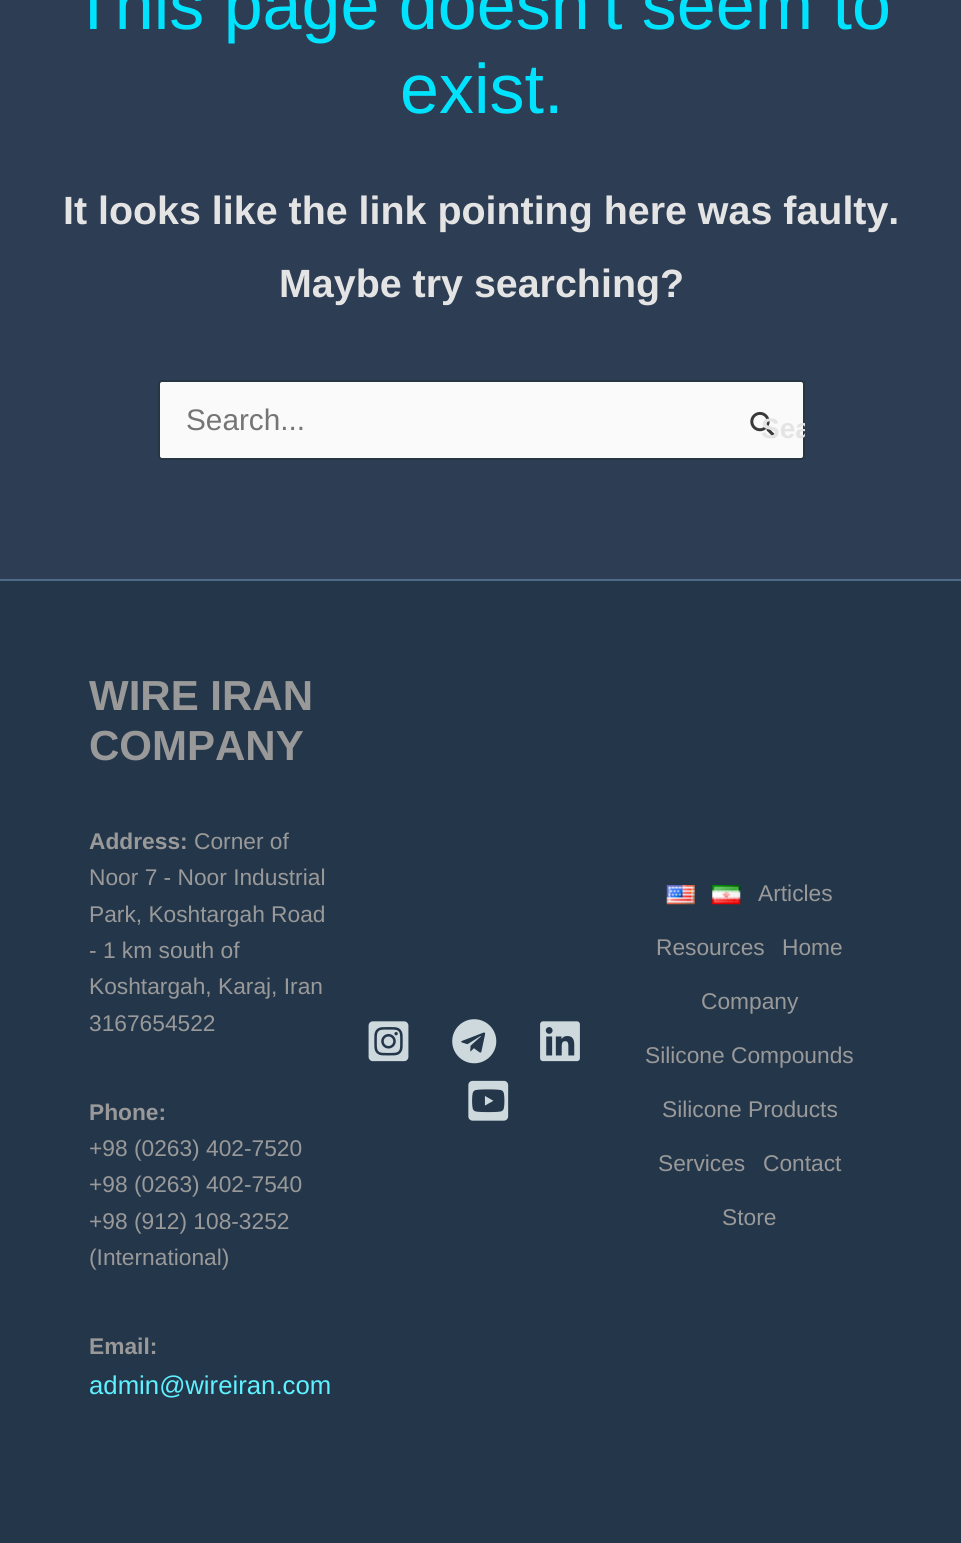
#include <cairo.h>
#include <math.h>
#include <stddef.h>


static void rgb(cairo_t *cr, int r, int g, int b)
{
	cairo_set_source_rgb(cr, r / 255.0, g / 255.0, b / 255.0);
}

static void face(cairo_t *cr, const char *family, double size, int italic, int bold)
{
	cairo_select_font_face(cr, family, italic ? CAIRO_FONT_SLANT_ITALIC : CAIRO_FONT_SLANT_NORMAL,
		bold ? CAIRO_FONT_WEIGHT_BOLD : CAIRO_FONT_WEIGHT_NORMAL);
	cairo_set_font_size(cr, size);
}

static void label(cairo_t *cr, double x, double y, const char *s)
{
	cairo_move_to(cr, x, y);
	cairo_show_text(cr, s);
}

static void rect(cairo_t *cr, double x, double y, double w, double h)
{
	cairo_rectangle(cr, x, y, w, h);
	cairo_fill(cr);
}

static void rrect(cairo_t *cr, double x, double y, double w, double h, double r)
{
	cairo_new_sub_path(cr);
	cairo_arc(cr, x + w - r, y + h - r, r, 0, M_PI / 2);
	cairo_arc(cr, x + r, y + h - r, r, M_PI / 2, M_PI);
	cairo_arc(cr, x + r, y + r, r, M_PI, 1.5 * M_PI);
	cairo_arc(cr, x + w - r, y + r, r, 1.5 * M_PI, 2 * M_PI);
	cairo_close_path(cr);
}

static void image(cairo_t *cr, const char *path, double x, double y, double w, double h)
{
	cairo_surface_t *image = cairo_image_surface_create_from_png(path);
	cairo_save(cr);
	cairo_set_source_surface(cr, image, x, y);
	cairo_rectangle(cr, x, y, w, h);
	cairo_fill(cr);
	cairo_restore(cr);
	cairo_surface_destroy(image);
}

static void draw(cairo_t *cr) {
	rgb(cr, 45, 61, 83);
	cairo_paint(cr);
	face(cr, "Liberation Sans", 70, 0, 0);
	rgb(cr, 0, 227, 255);
	label(cr, 72, 29, "This page doesn't seem to");
	label(cr, 400, 113, "exist.");
	face(cr, "Liberation Sans", 39.4, 0, 1);
	rgb(cr, 228, 228, 228);
	label(cr, 63, 224, "It looks like the link pointing here was faulty.");
	label(cr, 279, 297, "Maybe try searching?");
	rgb(cr, 250, 250, 250);
	rrect(cr, 159, 381, 645, 78, 3);
	cairo_fill_preserve(cr);
	rgb(cr, 38, 54, 66);
	cairo_stroke(cr);
	face(cr, "Liberation Sans", 29.75, 0, 0);
	rgb(cr, 117, 117, 117);
	label(cr, 186, 430, "Search...");
	image(cr, "image0.png", 750, 411, 25, 27);
	cairo_save(cr);
	rrect(cr, 726, 380, 79, 98, 4);
	cairo_clip(cr);
	face(cr, "Liberation Sans", 28, 0, 1);
	rgb(cr, 228, 228, 228);
	label(cr, 761, 438, "Sea");
	cairo_restore(cr);
	rgb(cr, 36, 54, 74);
	rect(cr, 0, 581, 961, 962);
	rgb(cr, 77, 107, 137);
	rect(cr, 0, 579, 961, 2);
	face(cr, "Liberation Sans", 42, 0, 1);
	rgb(cr, 153, 153, 153);
	label(cr, 89, 710, "WIRE IRAN");
	label(cr, 89, 760, "COMPANY");
	face(cr, "Liberation Sans", 22.75, 0, 1);
	label(cr, 89, 849, "Address:");
	face(cr, "Liberation Sans", 22.75, 0, 0);
	label(cr, 194, 849, "Corner of");
	label(cr, 89, 885, "Noor 7 - Noor Industrial");
	label(cr, 89, 922, "Park, Koshtargah Road");
	label(cr, 89, 958, "- 1 km south of");
	label(cr, 89, 994, "Koshtargah, Karaj, Iran");
	label(cr, 89, 1031, "3167654522");
	face(cr, "Liberation Sans", 22.75, 0, 1);
	label(cr, 89, 1120, "Phone:");
	face(cr, "Liberation Sans", 22.75, 0, 0);
	label(cr, 89, 1156, "+98 (0263) 402-7520");
	label(cr, 89, 1192, "+98 (0263) 402-7540");
	label(cr, 89, 1229, "+98 (912) 108-3252");
	label(cr, 89, 1265, "(International)");
	face(cr, "Liberation Sans", 22.75, 0, 1);
	label(cr, 89, 1354, "Email:");
	face(cr, "Liberation Sans", 25.75, 0, 0);
	rgb(cr, 94, 241, 255);
	label(cr, 89, 1394, "admin@wireiran.com");
	image(cr, "image1.png", 368, 1021, 41, 41);
	image(cr, "image2.png", 452, 1019, 45, 45);
	image(cr, "image3.png", 540, 1021, 40, 41);
	image(cr, "image4.png", 468, 1080, 41, 41);
	image(cr, "image5.png", 666, 885, 29, 20);
	image(cr, "image6.png", 712, 885, 29, 20);
	face(cr, "Liberation Sans", 22.75, 0, 0);
	rgb(cr, 153, 153, 153);
	label(cr, 758, 901, "Articles");
	label(cr, 656, 955, "Resources");
	label(cr, 782, 955, "Home");
	label(cr, 701, 1009, "Company");
	label(cr, 645, 1063, "Silicone Compounds");
	label(cr, 662, 1117, "Silicone Products");
	label(cr, 658, 1171, "Services");
	label(cr, 763, 1171, "Contact");
	label(cr, 722, 1225, "Store");
}

int main(void) {
	cairo_surface_t *surface = cairo_image_surface_create(CAIRO_FORMAT_RGB24, 961, 1543);
	cairo_t *cr = cairo_create(surface);
	cairo_font_options_t *options = cairo_font_options_create();
	cairo_font_options_set_hint_metrics(options, CAIRO_HINT_METRICS_OFF);
	cairo_font_options_set_hint_style(options, CAIRO_HINT_STYLE_NONE);
	cairo_set_font_options(cr, options);
	cairo_set_miter_limit(cr, 4);
	draw(cr);
	cairo_surface_write_to_png(surface, "render.png");
	cairo_font_options_destroy(options);
	cairo_destroy(cr);
	cairo_surface_destroy(surface);
	return 0;
}
